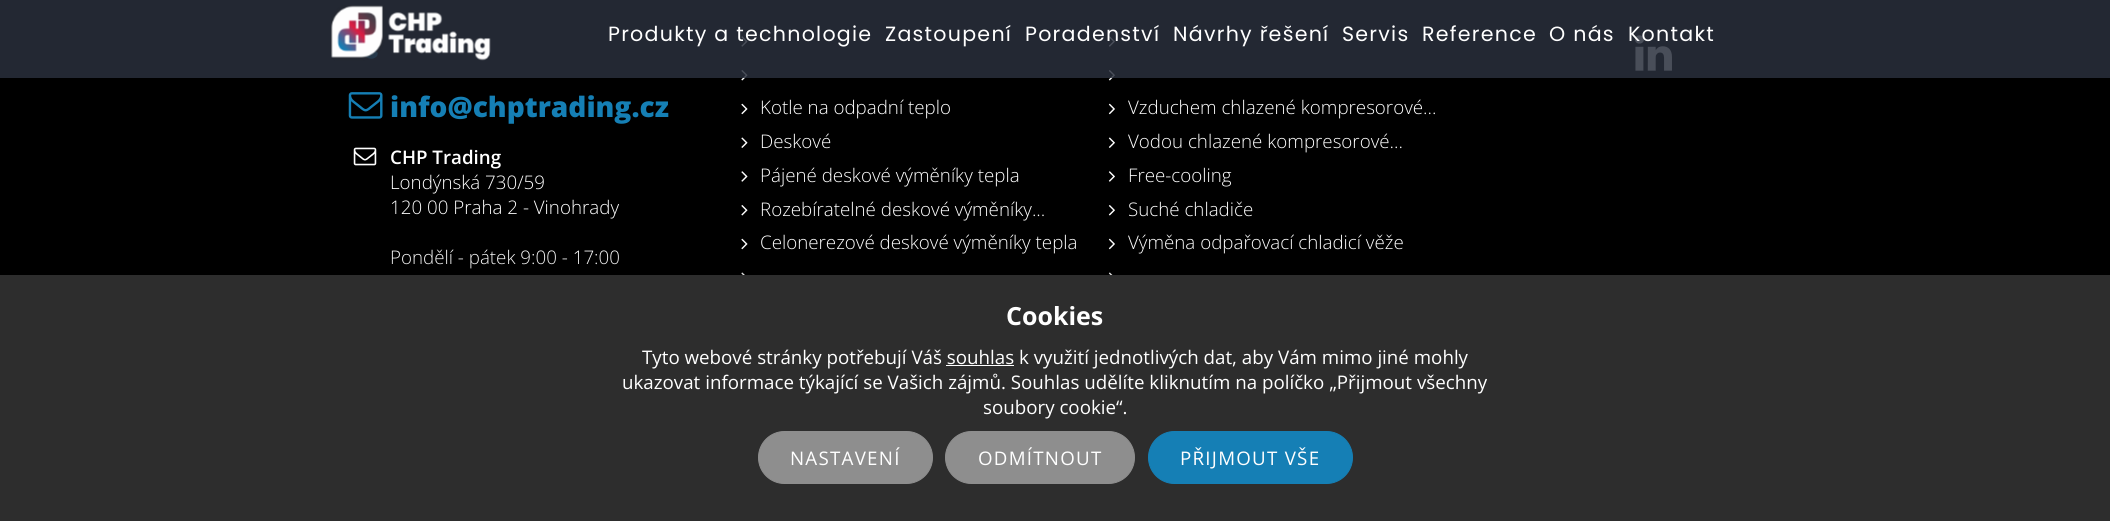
#include <cairo.h>
#include <math.h>
#include <stddef.h>


static void rgb(cairo_t *cr, int r, int g, int b)
{
	cairo_set_source_rgb(cr, r / 255.0, g / 255.0, b / 255.0);
}

static void face(cairo_t *cr, const char *family, double size, int italic, int bold)
{
	cairo_select_font_face(cr, family, italic ? CAIRO_FONT_SLANT_ITALIC : CAIRO_FONT_SLANT_NORMAL,
		bold ? CAIRO_FONT_WEIGHT_BOLD : CAIRO_FONT_WEIGHT_NORMAL);
	cairo_set_font_size(cr, size);
}

static void label(cairo_t *cr, double x, double y, const char *s)
{
	cairo_move_to(cr, x, y);
	cairo_show_text(cr, s);
}

static void tracked(cairo_t *cr, double x, double y, const char *s, double letter, double word)
{
	cairo_move_to(cr, x, y);
	while (*s) {
		char ch[5] = {0};
		int n = 0;
		do ch[n++] = *s++; while ((*s & 0xC0) == 0x80);
		cairo_show_text(cr, ch);
		cairo_rel_move_to(cr, letter + word * (*ch == ' '), 0);
	}
}

static void rect(cairo_t *cr, double x, double y, double w, double h)
{
	cairo_rectangle(cr, x, y, w, h);
	cairo_fill(cr);
}

static void rrect(cairo_t *cr, double x, double y, double w, double h, double r)
{
	cairo_new_sub_path(cr);
	cairo_arc(cr, x + w - r, y + h - r, r, 0, M_PI / 2);
	cairo_arc(cr, x + r, y + h - r, r, M_PI / 2, M_PI);
	cairo_arc(cr, x + r, y + r, r, M_PI, 1.5 * M_PI);
	cairo_arc(cr, x + w - r, y + r, r, 1.5 * M_PI, 2 * M_PI);
	cairo_close_path(cr);
}

static void soft_shadow(cairo_t *cr, double x, double y, double w, double h, double r, double blur, double alpha)
{
	cairo_push_group_with_content(cr, CAIRO_CONTENT_ALPHA);
	cairo_set_operator(cr, CAIRO_OPERATOR_SOURCE);
	for (int i = 15; i >= -15 && fmin(w, h) + blur * i / 3 > 0; i -= 2) {
		double e = blur * i / 6;
		cairo_set_source_rgba(cr, 0, 0, 0, alpha * erfc((i - 1) / 8.5) / 2);
		rrect(cr, x - e, y - e, w + 2 * e, h + 2 * e, fmax(0, fmin(r + e + blur * .6, fmin(w, h) / 2 + e)));
		cairo_fill(cr);
	}
	cairo_pattern_t *soft = cairo_pop_group(cr);
	cairo_mask(cr, soft);
	cairo_pattern_destroy(soft);
}

static void image(cairo_t *cr, const char *path, double x, double y, double w, double h)
{
	cairo_surface_t *image = cairo_image_surface_create_from_png(path);
	cairo_save(cr);
	cairo_set_source_surface(cr, image, x, y);
	cairo_rectangle(cr, x, y, w, h);
	cairo_fill(cr);
	cairo_restore(cr);
	cairo_surface_destroy(image);
}

static void draw(cairo_t *cr) {
	rgb(cr, 0, 0, 0);
	cairo_paint(cr);
	image(cr, "image1.png", 1635, 35, 37, 36);
	image(cr, "image2.png", 363, 50, 15, 9);
	image(cr, "image5.png", 741, 36, 7, 11);
	image(cr, "image6.png", 1108, 36, 7, 11);
	image(cr, "image7.png", 741, 70, 7, 11);
	image(cr, "image8.png", 1108, 70, 7, 11);
	cairo_set_source_rgba(cr, 0.161, 0.188, 0.235, 0.85);
	rect(cr, 0, 0, 2110, 78);
	image(cr, "image0.png", 331, 5, 160, 56);
	face(cr, "Poppins", 20.6, 0, 0);
	rgb(cr, 255, 255, 255);
	tracked(cr, 608, 41, "Produkty a technologie", 1.25, 0);
	tracked(cr, 885, 41, "Zastoupení", 1.25, 0);
	tracked(cr, 1025, 41, "Poradenství", 1.25, 0);
	tracked(cr, 1173, 41, "Návrhy řešení", 1.25, 0);
	tracked(cr, 1342, 41, "Servis", 1.25, 0);
	tracked(cr, 1422, 41, "Reference", 1.25, 0);
	tracked(cr, 1549, 41, "O nás", 1.25, 0);
	tracked(cr, 1628, 41, "Kontakt", 1.25, 0);
	image(cr, "image3.png", 348, 92, 35, 27);
	face(cr, "Open Sans ExtraBold", 28.1, 0, 0);
	rgb(cr, 21, 127, 181);
	label(cr, 390, 117, "info@chptrading.cz");
	image(cr, "image4.png", 353, 147, 24, 19);
	face(cr, "Open Sans SemiBold", 18.75, 0, 0);
	rgb(cr, 255, 255, 255);
	label(cr, 390, 164, "CHP Trading");
	face(cr, "Open Sans Light", 18.75, 0, 0);
	label(cr, 390, 189, "Londýnská 730/59");
	label(cr, 390, 214, "120 00 Praha 2 - Vinohrady");
	label(cr, 390, 264, "Pondělí - pátek 9:00 - 17:00");
	image(cr, "image9.png", 741, 103, 7, 12);
	label(cr, 760, 114, "Kotle na odpadní teplo");
	image(cr, "image10.png", 1108, 103, 7, 12);
	label(cr, 1128, 114, "Vzduchem chlazené kompresorové...");
	image(cr, "image11.png", 741, 137, 7, 11);
	label(cr, 760, 148, "Deskové");
	image(cr, "image12.png", 1108, 137, 7, 11);
	label(cr, 1128, 148, "Vodou chlazené kompresorové...");
	image(cr, "image5.png", 741, 171, 7, 11);
	label(cr, 760, 182, "Pájené deskové výměníky tepla");
	image(cr, "image6.png", 1108, 171, 7, 11);
	label(cr, 1128, 182, "Free-cooling");
	image(cr, "image7.png", 741, 205, 7, 11);
	label(cr, 760, 216, "Rozebíratelné deskové výměníky...");
	image(cr, "image8.png", 1108, 205, 7, 11);
	label(cr, 1128, 216, "Suché chladiče");
	image(cr, "image9.png", 741, 238, 7, 12);
	label(cr, 760, 249, "Celonerezové deskové výměníky tepla");
	image(cr, "image10.png", 1108, 238, 7, 12);
	label(cr, 1128, 249, "Výměna odpařovací chladicí věže");
	image(cr, "image13.png", 741, 272, 4, 3);
	image(cr, "image14.png", 1108, 272, 5, 3);
	rgb(cr, 0, 0, 0);
	soft_shadow(cr, 0, 263, 2110, 246, 0, 12.5, 0.15);
	rgb(cr, 45, 45, 45);
	rect(cr, 0, 275, 2110, 246);
	face(cr, "Open Sans", 25, 0, 1);
	rgb(cr, 255, 255, 255);
	label(cr, 1006, 325, "Cookies");
	face(cr, "Open Sans", 18.75, 0, 0);
	label(cr, 642, 364, "Tyto webové stránky potřebují Váš souhlas k využití jednotlivých dat, aby Vám mimo jiné mohly");
	rect(cr, 946, 365, 68, 1);
	label(cr, 622, 389, "ukazovat informace týkající se Vašich zájmů. Souhlas udělíte kliknutím na políčko „Přijmout všechny");
	label(cr, 983, 414, "soubory cookie“.");
	rgb(cr, 142, 142, 142);
	rrect(cr, 758.5, 431.5, 174, 52, 26);
	cairo_fill_preserve(cr);
	cairo_set_line_width(cr, 1);
	cairo_stroke(cr);
	rgb(cr, 255, 255, 255);
	tracked(cr, 790, 465, "NASTAVENÍ", 1.25, 0);
	rgb(cr, 142, 142, 142);
	rrect(cr, 945.5, 431.5, 189, 52, 26);
	cairo_fill_preserve(cr);
	cairo_stroke(cr);
	rgb(cr, 255, 255, 255);
	tracked(cr, 978, 465, "ODMÍTNOUT", 1.25, 0);
	rgb(cr, 21, 127, 181);
	rrect(cr, 1148.5, 431.5, 204, 52, 26);
	cairo_fill_preserve(cr);
	cairo_stroke(cr);
	rgb(cr, 255, 255, 255);
	tracked(cr, 1180, 465, "PŘIJMOUT VŠE", 1.25, 0);
}

int main(void) {
	cairo_surface_t *surface = cairo_image_surface_create(CAIRO_FORMAT_RGB24, 2110, 521);
	cairo_t *cr = cairo_create(surface);
	cairo_font_options_t *options = cairo_font_options_create();
	cairo_font_options_set_hint_metrics(options, CAIRO_HINT_METRICS_OFF);
	cairo_font_options_set_hint_style(options, CAIRO_HINT_STYLE_NONE);
	cairo_set_font_options(cr, options);
	cairo_set_miter_limit(cr, 4);
	draw(cr);
	cairo_surface_write_to_png(surface, "render.png");
	cairo_font_options_destroy(options);
	cairo_destroy(cr);
	cairo_surface_destroy(surface);
	return 0;
}
